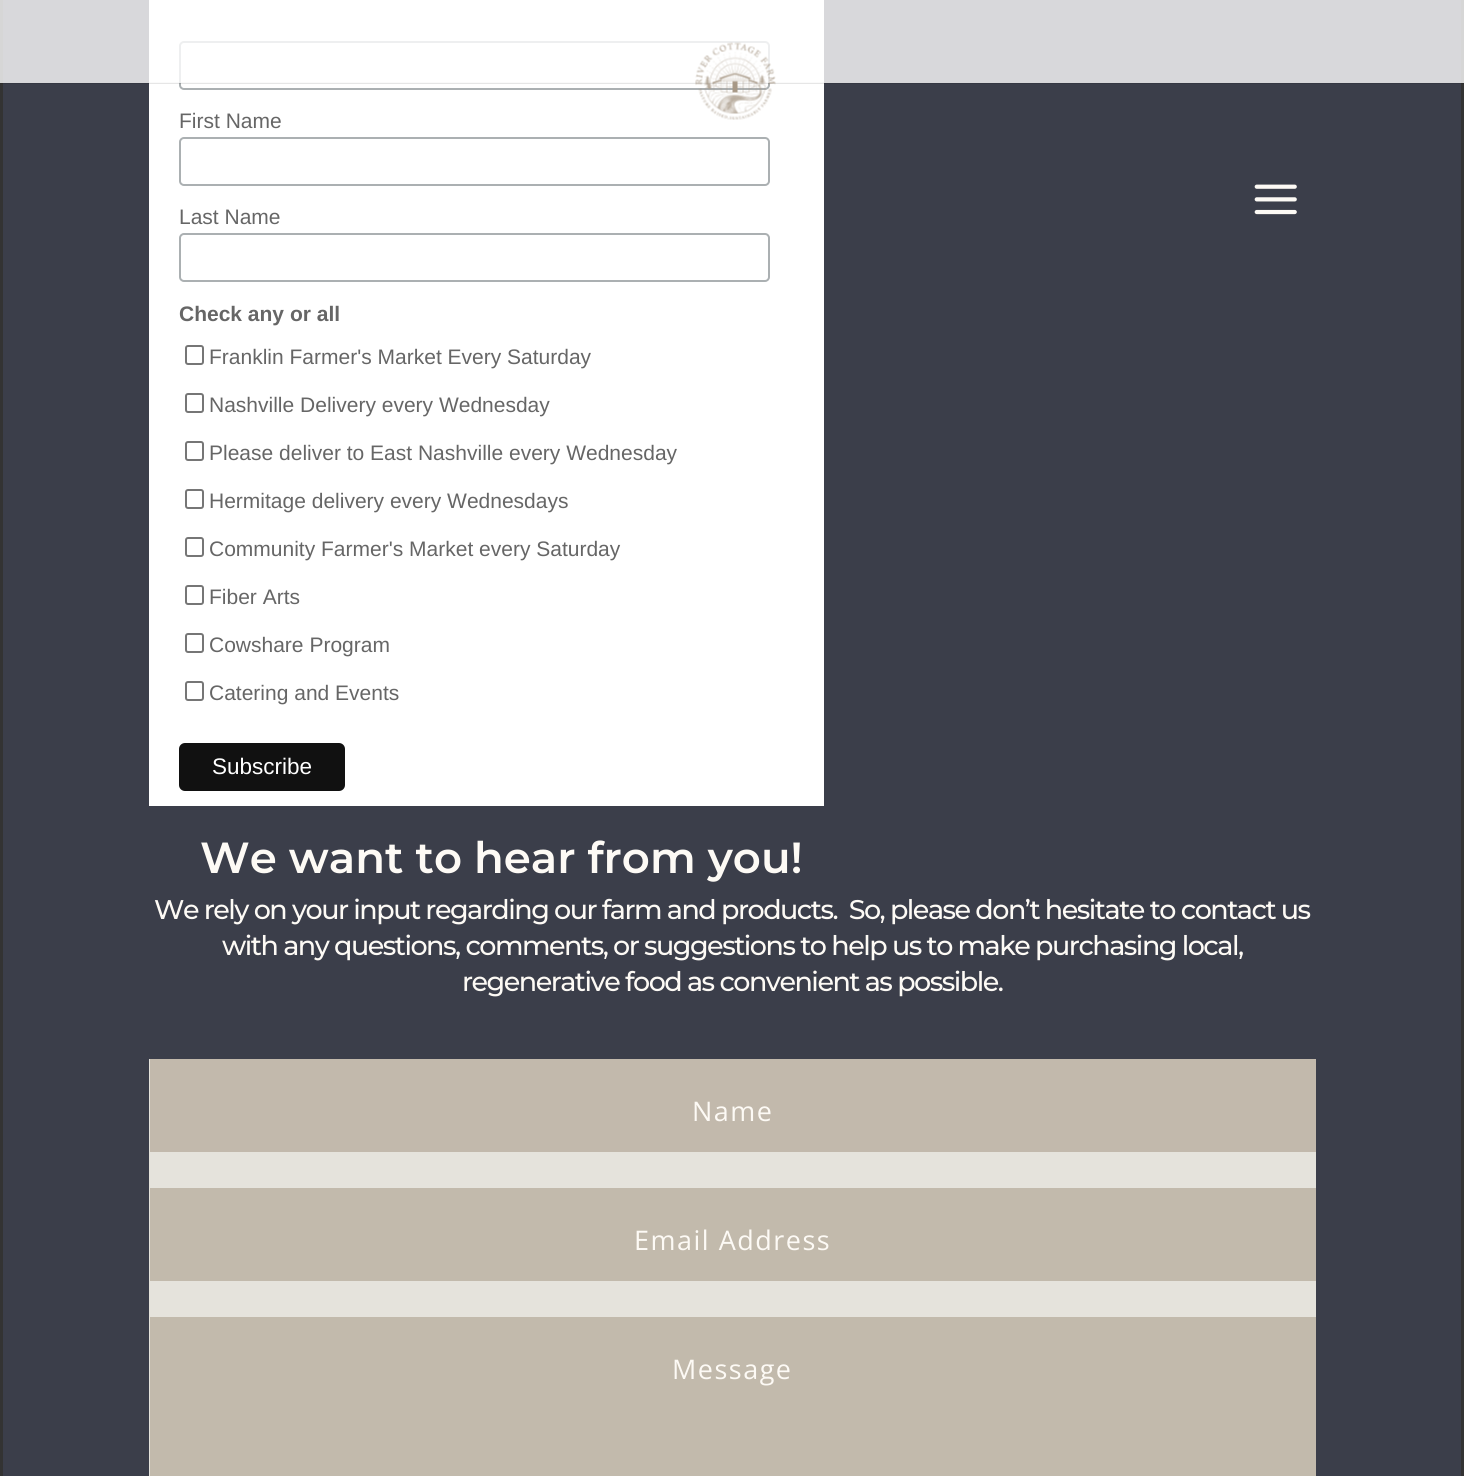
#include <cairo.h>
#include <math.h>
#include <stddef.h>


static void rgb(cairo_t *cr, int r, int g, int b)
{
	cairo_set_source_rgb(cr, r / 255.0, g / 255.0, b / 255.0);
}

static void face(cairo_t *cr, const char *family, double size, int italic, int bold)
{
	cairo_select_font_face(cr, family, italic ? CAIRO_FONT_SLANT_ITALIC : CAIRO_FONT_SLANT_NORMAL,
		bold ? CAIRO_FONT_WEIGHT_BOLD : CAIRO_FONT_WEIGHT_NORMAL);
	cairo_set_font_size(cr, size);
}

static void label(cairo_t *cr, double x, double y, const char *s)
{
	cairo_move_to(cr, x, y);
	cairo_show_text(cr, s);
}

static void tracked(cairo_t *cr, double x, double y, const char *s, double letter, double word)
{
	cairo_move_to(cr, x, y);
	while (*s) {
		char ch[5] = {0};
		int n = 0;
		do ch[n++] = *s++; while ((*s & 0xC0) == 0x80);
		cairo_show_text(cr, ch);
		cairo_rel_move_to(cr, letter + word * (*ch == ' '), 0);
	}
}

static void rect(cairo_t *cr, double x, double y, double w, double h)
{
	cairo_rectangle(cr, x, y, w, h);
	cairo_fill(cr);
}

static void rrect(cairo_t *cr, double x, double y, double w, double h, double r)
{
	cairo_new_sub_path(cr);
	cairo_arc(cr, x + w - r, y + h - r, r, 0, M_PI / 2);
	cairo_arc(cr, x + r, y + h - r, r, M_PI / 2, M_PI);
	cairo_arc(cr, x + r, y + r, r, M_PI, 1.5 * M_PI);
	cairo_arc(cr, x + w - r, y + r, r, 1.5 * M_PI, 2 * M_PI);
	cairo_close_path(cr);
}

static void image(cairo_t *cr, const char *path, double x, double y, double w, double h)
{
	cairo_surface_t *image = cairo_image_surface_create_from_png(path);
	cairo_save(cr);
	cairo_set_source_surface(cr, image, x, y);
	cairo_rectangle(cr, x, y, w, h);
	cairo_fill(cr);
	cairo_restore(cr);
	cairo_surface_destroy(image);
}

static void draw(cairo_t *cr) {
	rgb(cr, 59, 62, 74);
	cairo_paint(cr);
	cairo_rectangle(cr, 1.5, -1.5, 1461, 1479);
	rgb(cr, 51, 51, 51);
	cairo_set_line_width(cr, 3);
	cairo_stroke(cr);
	rgb(cr, 255, 255, 255);
	rect(cr, 149, 0, 675, 806);
	rrect(cr, 180, 42, 589, 47, 4);
	rgb(cr, 171, 176, 178);
	cairo_set_line_width(cr, 2);
	cairo_stroke(cr);
	cairo_set_source_rgba(cr, 0, 0, 0, 0.1);
	rect(cr, 0, 82, 1464, 2);
	cairo_set_source_rgba(cr, 1, 1, 1, 0.8);
	rect(cr, 0, 0, 1464, 83);
	image(cr, "image0.png", 695, 42, 81, 78);
	image(cr, "image1.png", 1254, 184, 43, 31);
	face(cr, "Liberation Sans", 21, 0, 0);
	rgb(cr, 102, 102, 102);
	label(cr, 179, 128, "First Name");
	rrect(cr, 180, 138, 589, 47, 4);
	rgb(cr, 171, 176, 178);
	cairo_stroke(cr);
	rgb(cr, 102, 102, 102);
	label(cr, 179, 224, "Last Name");
	rrect(cr, 180, 234, 589, 47, 4);
	rgb(cr, 171, 176, 178);
	cairo_stroke(cr);
	face(cr, "Liberation Sans", 21, 0, 1);
	rgb(cr, 102, 102, 102);
	label(cr, 179, 321, "Check any or all");
	rrect(cr, 186, 346, 17, 18, 2);
	rgb(cr, 118, 118, 118);
	cairo_stroke(cr);
	face(cr, "Liberation Sans", 21, 0, 0);
	rgb(cr, 102, 102, 102);
	label(cr, 209, 364, "Franklin Farmer's Market Every Saturday");
	rrect(cr, 186, 394, 17, 18, 2);
	rgb(cr, 118, 118, 118);
	cairo_stroke(cr);
	rgb(cr, 102, 102, 102);
	label(cr, 209, 412, "Nashville Delivery every Wednesday");
	rrect(cr, 186, 442, 17, 18, 2);
	rgb(cr, 118, 118, 118);
	cairo_stroke(cr);
	rgb(cr, 102, 102, 102);
	label(cr, 209, 460, "Please deliver to East Nashville every Wednesday");
	rrect(cr, 186, 490, 17, 18, 2);
	rgb(cr, 118, 118, 118);
	cairo_stroke(cr);
	rgb(cr, 102, 102, 102);
	label(cr, 209, 508, "Hermitage delivery every Wednesdays");
	rrect(cr, 186, 538, 17, 18, 2);
	rgb(cr, 118, 118, 118);
	cairo_stroke(cr);
	rgb(cr, 102, 102, 102);
	label(cr, 209, 556, "Community Farmer's Market every Saturday");
	rrect(cr, 186, 586, 17, 18, 2);
	rgb(cr, 118, 118, 118);
	cairo_stroke(cr);
	rgb(cr, 102, 102, 102);
	label(cr, 209, 604, "Fiber Arts");
	rrect(cr, 186, 634, 17, 18, 2);
	rgb(cr, 118, 118, 118);
	cairo_stroke(cr);
	rgb(cr, 102, 102, 102);
	label(cr, 209, 652, "Cowshare Program");
	rrect(cr, 186, 682, 17, 18, 2);
	rgb(cr, 118, 118, 118);
	cairo_stroke(cr);
	rgb(cr, 102, 102, 102);
	label(cr, 209, 700, "Catering and Events");
	rgb(cr, 17, 17, 17);
	rrect(cr, 179, 743, 166, 48, 6);
	cairo_fill(cr);
	face(cr, "Liberation Sans", 22.5, 0, 0);
	rgb(cr, 255, 255, 255);
	label(cr, 212, 774, "Subscribe");
	face(cr, "Montserrat Thin", 43.5, 0, 0);
	rgb(cr, 253, 250, 245);
	label(cr, 200, 873, "We want to hear from you!");
	face(cr, "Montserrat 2 Thin", 27, 0, 0);
	tracked(cr, 154, 919, "We rely on your input regarding our farm and products.  So, please don’t hesitate to contact us", -1.5, 0);
	tracked(cr, 222, 955, "with any questions, comments, or suggestions to help us to make purchasing local,", -1.5, 0);
	tracked(cr, 462, 991, "regenerative food as convenient as possible.", -1.5, 0);
	rgb(cr, 229, 227, 220);
	rect(cr, 149, 1059, 1167, 417);
	rgb(cr, 194, 185, 172);
	rect(cr, 150, 1059, 1166, 93);
	face(cr, "Open Sans", 27, 0, 0);
	rgb(cr, 253, 250, 245);
	tracked(cr, 692, 1121, "Name", 1.5, 0);
	rgb(cr, 194, 186, 172);
	rect(cr, 150, 1188, 1166, 93);
	rgb(cr, 253, 250, 245);
	tracked(cr, 634, 1250, "Email Address", 1.5, 0);
	rgb(cr, 194, 186, 172);
	rect(cr, 150, 1317, 1166, 159);
	rgb(cr, 253, 250, 245);
	tracked(cr, 672, 1379, "Message", 1.5, 0);
}

int main(void) {
	cairo_surface_t *surface = cairo_image_surface_create(CAIRO_FORMAT_RGB24, 1464, 1476);
	cairo_t *cr = cairo_create(surface);
	cairo_font_options_t *options = cairo_font_options_create();
	cairo_font_options_set_hint_metrics(options, CAIRO_HINT_METRICS_OFF);
	cairo_font_options_set_hint_style(options, CAIRO_HINT_STYLE_NONE);
	cairo_set_font_options(cr, options);
	cairo_set_miter_limit(cr, 4);
	draw(cr);
	cairo_surface_write_to_png(surface, "render.png");
	cairo_font_options_destroy(options);
	cairo_destroy(cr);
	cairo_surface_destroy(surface);
	return 0;
}
